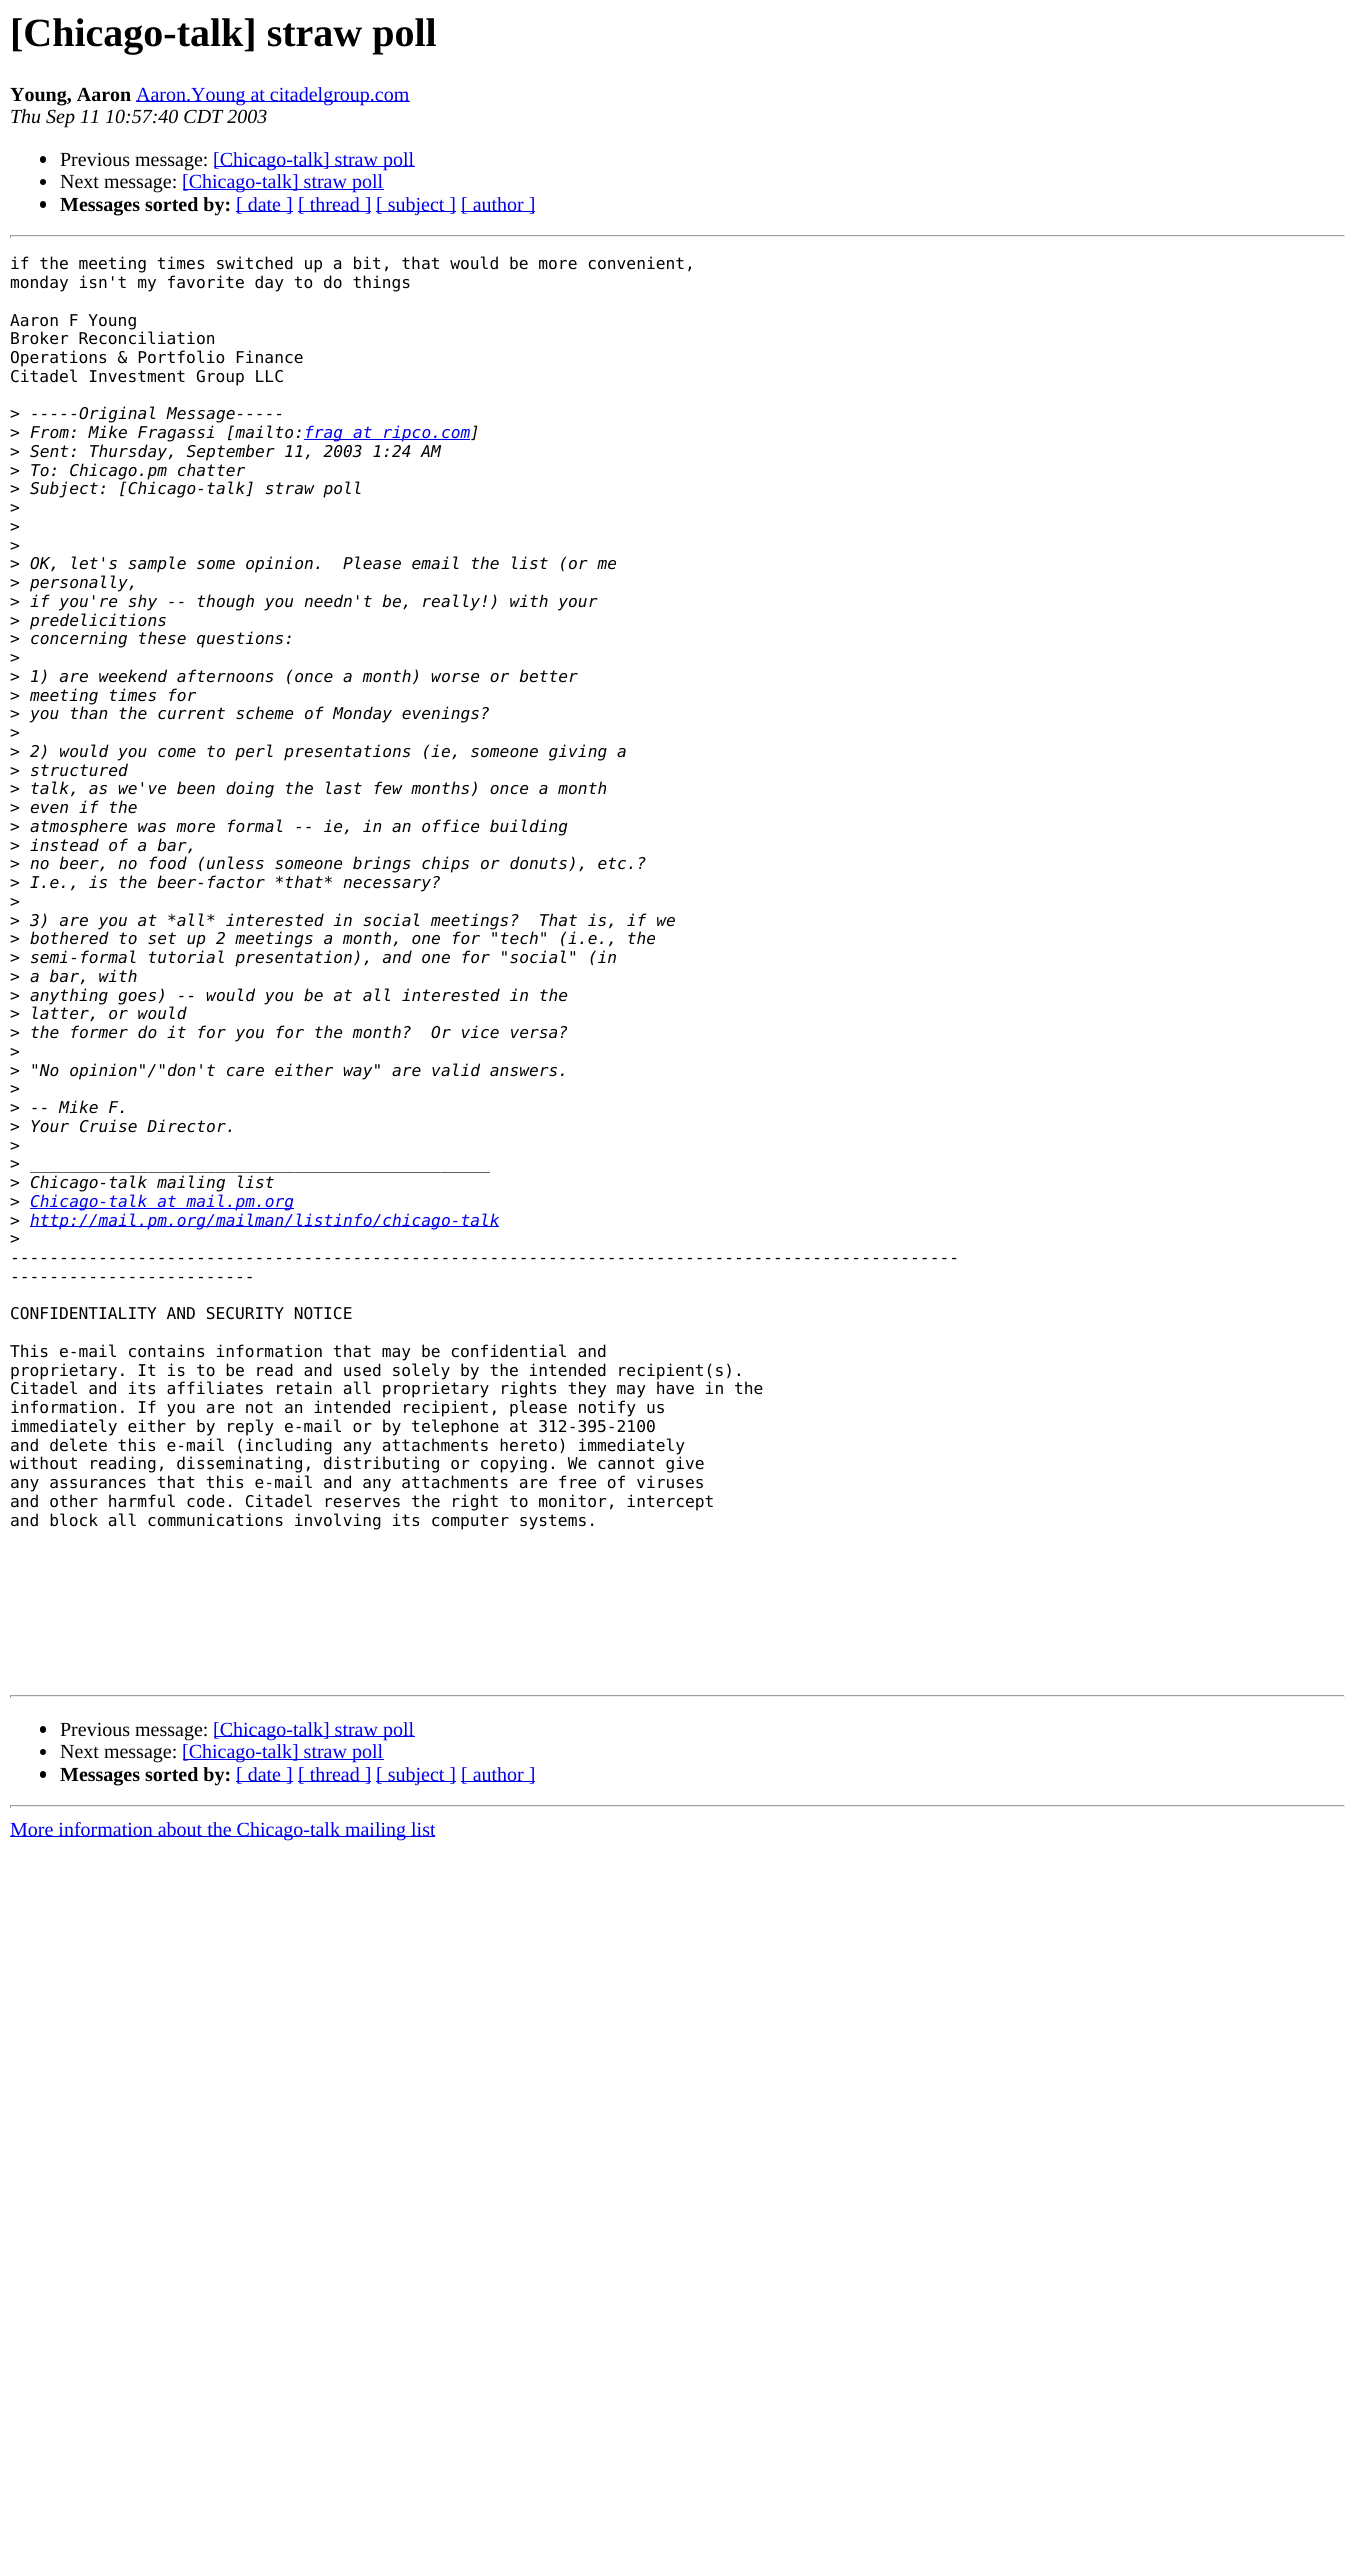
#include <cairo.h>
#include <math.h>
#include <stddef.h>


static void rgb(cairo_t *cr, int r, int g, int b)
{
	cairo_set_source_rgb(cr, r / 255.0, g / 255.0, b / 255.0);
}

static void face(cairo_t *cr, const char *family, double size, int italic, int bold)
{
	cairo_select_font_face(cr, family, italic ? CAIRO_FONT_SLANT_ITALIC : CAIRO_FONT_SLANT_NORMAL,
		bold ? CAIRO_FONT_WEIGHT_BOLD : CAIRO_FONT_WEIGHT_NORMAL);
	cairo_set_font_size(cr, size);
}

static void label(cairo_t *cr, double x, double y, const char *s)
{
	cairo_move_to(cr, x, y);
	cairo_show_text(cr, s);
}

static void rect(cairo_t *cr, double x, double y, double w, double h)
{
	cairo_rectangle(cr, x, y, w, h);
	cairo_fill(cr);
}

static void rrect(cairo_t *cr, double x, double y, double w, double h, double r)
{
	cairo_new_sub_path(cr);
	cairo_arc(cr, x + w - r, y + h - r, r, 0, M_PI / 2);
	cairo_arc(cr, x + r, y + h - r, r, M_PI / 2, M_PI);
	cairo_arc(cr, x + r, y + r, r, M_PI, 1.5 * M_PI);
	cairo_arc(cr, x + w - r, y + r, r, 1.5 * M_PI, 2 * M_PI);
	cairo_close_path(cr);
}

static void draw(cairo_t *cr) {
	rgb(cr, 255, 255, 255);
	cairo_paint(cr);
	face(cr, "Liberation Serif", 40, 0, 1);
	rgb(cr, 0, 0, 0);
	label(cr, 10, 46, "[Chicago-talk] straw poll");
	face(cr, "Liberation Serif", 20, 0, 1);
	label(cr, 10, 101, "Young, Aaron");
	rgb(cr, 0, 0, 238);
	rect(cr, 136, 101, 274, 1);
	face(cr, "Liberation Serif", 20, 0, 0);
	label(cr, 136, 101, "Aaron.Young at citadelgroup.com");
	face(cr, "Liberation Serif", 20, 1, 0);
	rgb(cr, 0, 0, 0);
	label(cr, 10, 123, "Thu Sep 11 10:57:40 CDT 2003");
	rrect(cr, 40, 156, 6, 7, 3);
	cairo_fill(cr);
	face(cr, "Liberation Serif", 20, 0, 0);
	label(cr, 60, 166, "Previous message:");
	rgb(cr, 0, 0, 238);
	rect(cr, 214, 166, 201, 1);
	label(cr, 213, 166, "[Chicago-talk] straw poll");
	rgb(cr, 0, 0, 0);
	cairo_new_path(cr);
	cairo_arc(cr, 43, 182, 3, 0, 2 * M_PI);
	cairo_fill(cr);
	label(cr, 60, 188, "Next message:");
	rgb(cr, 0, 0, 238);
	rect(cr, 183, 189, 201, 1);
	label(cr, 182, 188, "[Chicago-talk] straw poll");
	rgb(cr, 0, 0, 0);
	rrect(cr, 40, 201, 6, 7, 3);
	cairo_fill(cr);
	face(cr, "Liberation Serif", 20, 0, 1);
	label(cr, 60, 211, "Messages sorted by:");
	rgb(cr, 0, 0, 238);
	rect(cr, 236, 211, 57, 1);
	face(cr, "Liberation Serif", 20, 0, 0);
	label(cr, 236, 211, "[ date ]");
	rect(cr, 298, 211, 73, 1);
	label(cr, 298, 211, "[ thread ]");
	rect(cr, 376, 211, 80, 1);
	label(cr, 376, 211, "[ subject ]");
	rect(cr, 461, 211, 74, 1);
	label(cr, 461, 211, "[ author ]");
	rgb(cr, 159, 159, 159);
	rect(cr, 10, 235, 1335, 1);
	rgb(cr, 238, 238, 238);
	rect(cr, 1344, 235, 1, 3);
	rect(cr, 10, 236, 1335, 1);
	rgb(cr, 159, 159, 159);
	rect(cr, 10, 235, 1, 3);
	face(cr, "DejaVu Sans Mono", 16.25, 0, 0);
	rgb(cr, 0, 0, 0);
	label(cr, 10, 269, "if the meeting times switched up a bit, that would be more convenient,");
	label(cr, 10, 288, "monday isn't my favorite day to do things");
	label(cr, 10, 326, "Aaron F Young");
	label(cr, 10, 344, "Broker Reconciliation");
	label(cr, 10, 363, "Operations & Portfolio Finance");
	label(cr, 10, 382, "Citadel Investment Group LLC");
	label(cr, 10, 419, ">");
	face(cr, "DejaVu Sans Mono", 16.25, 1, 0);
	label(cr, 30, 419, "-----Original Message-----");
	face(cr, "DejaVu Sans Mono", 16.25, 0, 0);
	label(cr, 10, 438, ">");
	face(cr, "DejaVu Sans Mono", 16.25, 1, 0);
	label(cr, 30, 438, "From: Mike Fragassi [mailto:");
	rgb(cr, 0, 0, 238);
	rect(cr, 304, 439, 166, 1);
	label(cr, 304, 438, "frag at ripco.com");
	rgb(cr, 0, 0, 0);
	label(cr, 470, 438, "]");
	face(cr, "DejaVu Sans Mono", 16.25, 0, 0);
	label(cr, 10, 457, ">");
	face(cr, "DejaVu Sans Mono", 16.25, 1, 0);
	label(cr, 30, 457, "Sent: Thursday, September 11, 2003 1:24 AM");
	face(cr, "DejaVu Sans Mono", 16.25, 0, 0);
	label(cr, 10, 476, ">");
	face(cr, "DejaVu Sans Mono", 16.25, 1, 0);
	label(cr, 30, 476, "To: Chicago.pm chatter");
	face(cr, "DejaVu Sans Mono", 16.25, 0, 0);
	label(cr, 10, 494, ">");
	face(cr, "DejaVu Sans Mono", 16.25, 1, 0);
	label(cr, 30, 494, "Subject: [Chicago-talk] straw poll");
	face(cr, "DejaVu Sans Mono", 16.25, 0, 0);
	label(cr, 10, 513, ">");
	label(cr, 10, 532, ">");
	label(cr, 10, 551, ">");
	label(cr, 10, 569, ">");
	face(cr, "DejaVu Sans Mono", 16.25, 1, 0);
	label(cr, 30, 569, "OK, let's sample some opinion.  Please email the list (or me");
	face(cr, "DejaVu Sans Mono", 16.25, 0, 0);
	label(cr, 10, 588, ">");
	face(cr, "DejaVu Sans Mono", 16.25, 1, 0);
	label(cr, 30, 588, "personally,");
	face(cr, "DejaVu Sans Mono", 16.25, 0, 0);
	label(cr, 10, 607, ">");
	face(cr, "DejaVu Sans Mono", 16.25, 1, 0);
	label(cr, 30, 607, "if you're shy -- though you needn't be, really!) with your");
	face(cr, "DejaVu Sans Mono", 16.25, 0, 0);
	label(cr, 10, 626, ">");
	face(cr, "DejaVu Sans Mono", 16.25, 1, 0);
	label(cr, 30, 626, "predelicitions");
	face(cr, "DejaVu Sans Mono", 16.25, 0, 0);
	label(cr, 10, 644, ">");
	face(cr, "DejaVu Sans Mono", 16.25, 1, 0);
	label(cr, 30, 644, "concerning these questions:");
	face(cr, "DejaVu Sans Mono", 16.25, 0, 0);
	label(cr, 10, 663, ">");
	label(cr, 10, 682, ">");
	face(cr, "DejaVu Sans Mono", 16.25, 1, 0);
	label(cr, 30, 682, "1) are weekend afternoons (once a month) worse or better");
	face(cr, "DejaVu Sans Mono", 16.25, 0, 0);
	label(cr, 10, 701, ">");
	face(cr, "DejaVu Sans Mono", 16.25, 1, 0);
	label(cr, 30, 701, "meeting times for");
	face(cr, "DejaVu Sans Mono", 16.25, 0, 0);
	label(cr, 10, 719, ">");
	face(cr, "DejaVu Sans Mono", 16.25, 1, 0);
	label(cr, 30, 719, "you than the current scheme of Monday evenings?");
	face(cr, "DejaVu Sans Mono", 16.25, 0, 0);
	label(cr, 10, 738, ">");
	label(cr, 10, 757, ">");
	face(cr, "DejaVu Sans Mono", 16.25, 1, 0);
	label(cr, 30, 757, "2) would you come to perl presentations (ie, someone giving a");
	face(cr, "DejaVu Sans Mono", 16.25, 0, 0);
	label(cr, 10, 776, ">");
	face(cr, "DejaVu Sans Mono", 16.25, 1, 0);
	label(cr, 30, 776, "structured");
	face(cr, "DejaVu Sans Mono", 16.25, 0, 0);
	label(cr, 10, 794, ">");
	face(cr, "DejaVu Sans Mono", 16.25, 1, 0);
	label(cr, 30, 794, "talk, as we've been doing the last few months) once a month");
	face(cr, "DejaVu Sans Mono", 16.25, 0, 0);
	label(cr, 10, 813, ">");
	face(cr, "DejaVu Sans Mono", 16.25, 1, 0);
	label(cr, 30, 813, "even if the");
	face(cr, "DejaVu Sans Mono", 16.25, 0, 0);
	label(cr, 10, 832, ">");
	face(cr, "DejaVu Sans Mono", 16.25, 1, 0);
	label(cr, 30, 832, "atmosphere was more formal -- ie, in an office building");
	face(cr, "DejaVu Sans Mono", 16.25, 0, 0);
	label(cr, 10, 851, ">");
	face(cr, "DejaVu Sans Mono", 16.25, 1, 0);
	label(cr, 30, 851, "instead of a bar,");
	face(cr, "DejaVu Sans Mono", 16.25, 0, 0);
	label(cr, 10, 869, ">");
	face(cr, "DejaVu Sans Mono", 16.25, 1, 0);
	label(cr, 30, 869, "no beer, no food (unless someone brings chips or donuts), etc.?");
	face(cr, "DejaVu Sans Mono", 16.25, 0, 0);
	label(cr, 10, 888, ">");
	face(cr, "DejaVu Sans Mono", 16.25, 1, 0);
	label(cr, 30, 888, "I.e., is the beer-factor *that* necessary?");
	face(cr, "DejaVu Sans Mono", 16.25, 0, 0);
	label(cr, 10, 907, ">");
	label(cr, 10, 926, ">");
	face(cr, "DejaVu Sans Mono", 16.25, 1, 0);
	label(cr, 30, 926, "3) are you at *all* interested in social meetings?  That is, if we");
	face(cr, "DejaVu Sans Mono", 16.25, 0, 0);
	label(cr, 10, 944, ">");
	face(cr, "DejaVu Sans Mono", 16.25, 1, 0);
	label(cr, 30, 944, "bothered to set up 2 meetings a month, one for \"tech\" (i.e., the");
	face(cr, "DejaVu Sans Mono", 16.25, 0, 0);
	label(cr, 10, 963, ">");
	face(cr, "DejaVu Sans Mono", 16.25, 1, 0);
	label(cr, 30, 963, "semi-formal tutorial presentation), and one for \"social\" (in");
	face(cr, "DejaVu Sans Mono", 16.25, 0, 0);
	label(cr, 10, 982, ">");
	face(cr, "DejaVu Sans Mono", 16.25, 1, 0);
	label(cr, 30, 982, "a bar, with");
	face(cr, "DejaVu Sans Mono", 16.25, 0, 0);
	label(cr, 10, 1001, ">");
	face(cr, "DejaVu Sans Mono", 16.25, 1, 0);
	label(cr, 30, 1001, "anything goes) -- would you be at all interested in the");
	face(cr, "DejaVu Sans Mono", 16.25, 0, 0);
	label(cr, 10, 1019, ">");
	face(cr, "DejaVu Sans Mono", 16.25, 1, 0);
	label(cr, 30, 1019, "latter, or would");
	face(cr, "DejaVu Sans Mono", 16.25, 0, 0);
	label(cr, 10, 1038, ">");
	face(cr, "DejaVu Sans Mono", 16.25, 1, 0);
	label(cr, 30, 1038, "the former do it for you for the month?  Or vice versa?");
	face(cr, "DejaVu Sans Mono", 16.25, 0, 0);
	label(cr, 10, 1057, ">");
	label(cr, 10, 1076, ">");
	face(cr, "DejaVu Sans Mono", 16.25, 1, 0);
	label(cr, 30, 1076, "\"No opinion\"/\"don't care either way\" are valid answers.");
	face(cr, "DejaVu Sans Mono", 16.25, 0, 0);
	label(cr, 10, 1094, ">");
	label(cr, 10, 1113, ">");
	face(cr, "DejaVu Sans Mono", 16.25, 1, 0);
	label(cr, 30, 1113, "-- Mike F.");
	face(cr, "DejaVu Sans Mono", 16.25, 0, 0);
	label(cr, 10, 1132, ">");
	face(cr, "DejaVu Sans Mono", 16.25, 1, 0);
	label(cr, 30, 1132, "Your Cruise Director.");
	face(cr, "DejaVu Sans Mono", 16.25, 0, 0);
	label(cr, 10, 1151, ">");
	label(cr, 10, 1169, ">");
	face(cr, "DejaVu Sans Mono", 16.25, 1, 0);
	label(cr, 30, 1169, "_______________________________________________");
	face(cr, "DejaVu Sans Mono", 16.25, 0, 0);
	label(cr, 10, 1188, ">");
	face(cr, "DejaVu Sans Mono", 16.25, 1, 0);
	label(cr, 30, 1188, "Chicago-talk mailing list");
	face(cr, "DejaVu Sans Mono", 16.25, 0, 0);
	label(cr, 10, 1207, ">");
	rgb(cr, 0, 0, 238);
	rect(cr, 30, 1208, 264, 1);
	face(cr, "DejaVu Sans Mono", 16.25, 1, 0);
	label(cr, 30, 1207, "Chicago-talk at mail.pm.org");
	face(cr, "DejaVu Sans Mono", 16.25, 0, 0);
	rgb(cr, 0, 0, 0);
	label(cr, 10, 1226, ">");
	rgb(cr, 0, 0, 238);
	rect(cr, 30, 1226, 469, 1);
	face(cr, "DejaVu Sans Mono", 16.25, 1, 0);
	label(cr, 30, 1226, "http://mail.pm.org/mailman/listinfo/chicago-talk");
	face(cr, "DejaVu Sans Mono", 16.25, 0, 0);
	rgb(cr, 0, 0, 0);
	label(cr, 10, 1244, ">");
	label(cr, 10, 1263, "-------------------------------------------------------------------------------------------------");
	label(cr, 10, 1282, "-------------------------");
	label(cr, 10, 1319, "CONFIDENTIALITY AND SECURITY NOTICE");
	label(cr, 10, 1357, "This e-mail contains information that may be confidential and");
	label(cr, 10, 1376, "proprietary. It is to be read and used solely by the intended recipient(s).");
	label(cr, 10, 1394, "Citadel and its affiliates retain all proprietary rights they may have in the");
	label(cr, 10, 1413, "information. If you are not an intended recipient, please notify us");
	label(cr, 10, 1432, "immediately either by reply e-mail or by telephone at 312-395-2100");
	label(cr, 10, 1451, "and delete this e-mail (including any attachments hereto) immediately");
	label(cr, 10, 1469, "without reading, disseminating, distributing or copying. We cannot give");
	label(cr, 10, 1488, "any assurances that this e-mail and any attachments are free of viruses");
	label(cr, 10, 1507, "and other harmful code. Citadel reserves the right to monitor, intercept");
	label(cr, 10, 1526, "and block all communications involving its computer systems.");
	rgb(cr, 159, 159, 159);
	rect(cr, 10, 1695, 1335, 1);
	rgb(cr, 238, 238, 238);
	rect(cr, 1344, 1695, 1, 3);
	rect(cr, 10, 1696, 1335, 1);
	rgb(cr, 159, 159, 159);
	rect(cr, 10, 1695, 1, 3);
	rgb(cr, 0, 0, 0);
	rrect(cr, 40, 1726, 6, 7, 3);
	cairo_fill(cr);
	face(cr, "Liberation Serif", 20, 0, 0);
	label(cr, 60, 1736, "Previous message:");
	rgb(cr, 0, 0, 238);
	rect(cr, 214, 1736, 201, 1);
	label(cr, 213, 1736, "[Chicago-talk] straw poll");
	rgb(cr, 0, 0, 0);
	cairo_new_path(cr);
	cairo_arc(cr, 43, 1752, 3, 0, 2 * M_PI);
	cairo_fill(cr);
	label(cr, 60, 1758, "Next message:");
	rgb(cr, 0, 0, 238);
	rect(cr, 183, 1759, 201, 1);
	label(cr, 182, 1758, "[Chicago-talk] straw poll");
	rgb(cr, 0, 0, 0);
	rrect(cr, 40, 1771, 6, 7, 3);
	cairo_fill(cr);
	face(cr, "Liberation Serif", 20, 0, 1);
	label(cr, 60, 1781, "Messages sorted by:");
	rgb(cr, 0, 0, 238);
	rect(cr, 236, 1781, 57, 1);
	face(cr, "Liberation Serif", 20, 0, 0);
	label(cr, 236, 1781, "[ date ]");
	rect(cr, 298, 1781, 73, 1);
	label(cr, 298, 1781, "[ thread ]");
	rect(cr, 376, 1781, 80, 1);
	label(cr, 376, 1781, "[ subject ]");
	rect(cr, 461, 1781, 74, 1);
	label(cr, 461, 1781, "[ author ]");
	rgb(cr, 159, 159, 159);
	rect(cr, 10, 1805, 1335, 1);
	rgb(cr, 238, 238, 238);
	rect(cr, 1344, 1805, 1, 3);
	rect(cr, 10, 1806, 1335, 1);
	rgb(cr, 159, 159, 159);
	rect(cr, 10, 1805, 1, 3);
	rgb(cr, 0, 0, 238);
	rect(cr, 10, 1836, 425, 1);
	label(cr, 10, 1836, "More information about the Chicago-talk mailing list");
}

int main(void) {
	cairo_surface_t *surface = cairo_image_surface_create(CAIRO_FORMAT_RGB24, 1355, 2553);
	cairo_t *cr = cairo_create(surface);
	cairo_font_options_t *options = cairo_font_options_create();
	cairo_font_options_set_hint_metrics(options, CAIRO_HINT_METRICS_OFF);
	cairo_font_options_set_hint_style(options, CAIRO_HINT_STYLE_NONE);
	cairo_set_font_options(cr, options);
	cairo_set_miter_limit(cr, 4);
	draw(cr);
	cairo_surface_write_to_png(surface, "render.png");
	cairo_font_options_destroy(options);
	cairo_destroy(cr);
	cairo_surface_destroy(surface);
	return 0;
}
